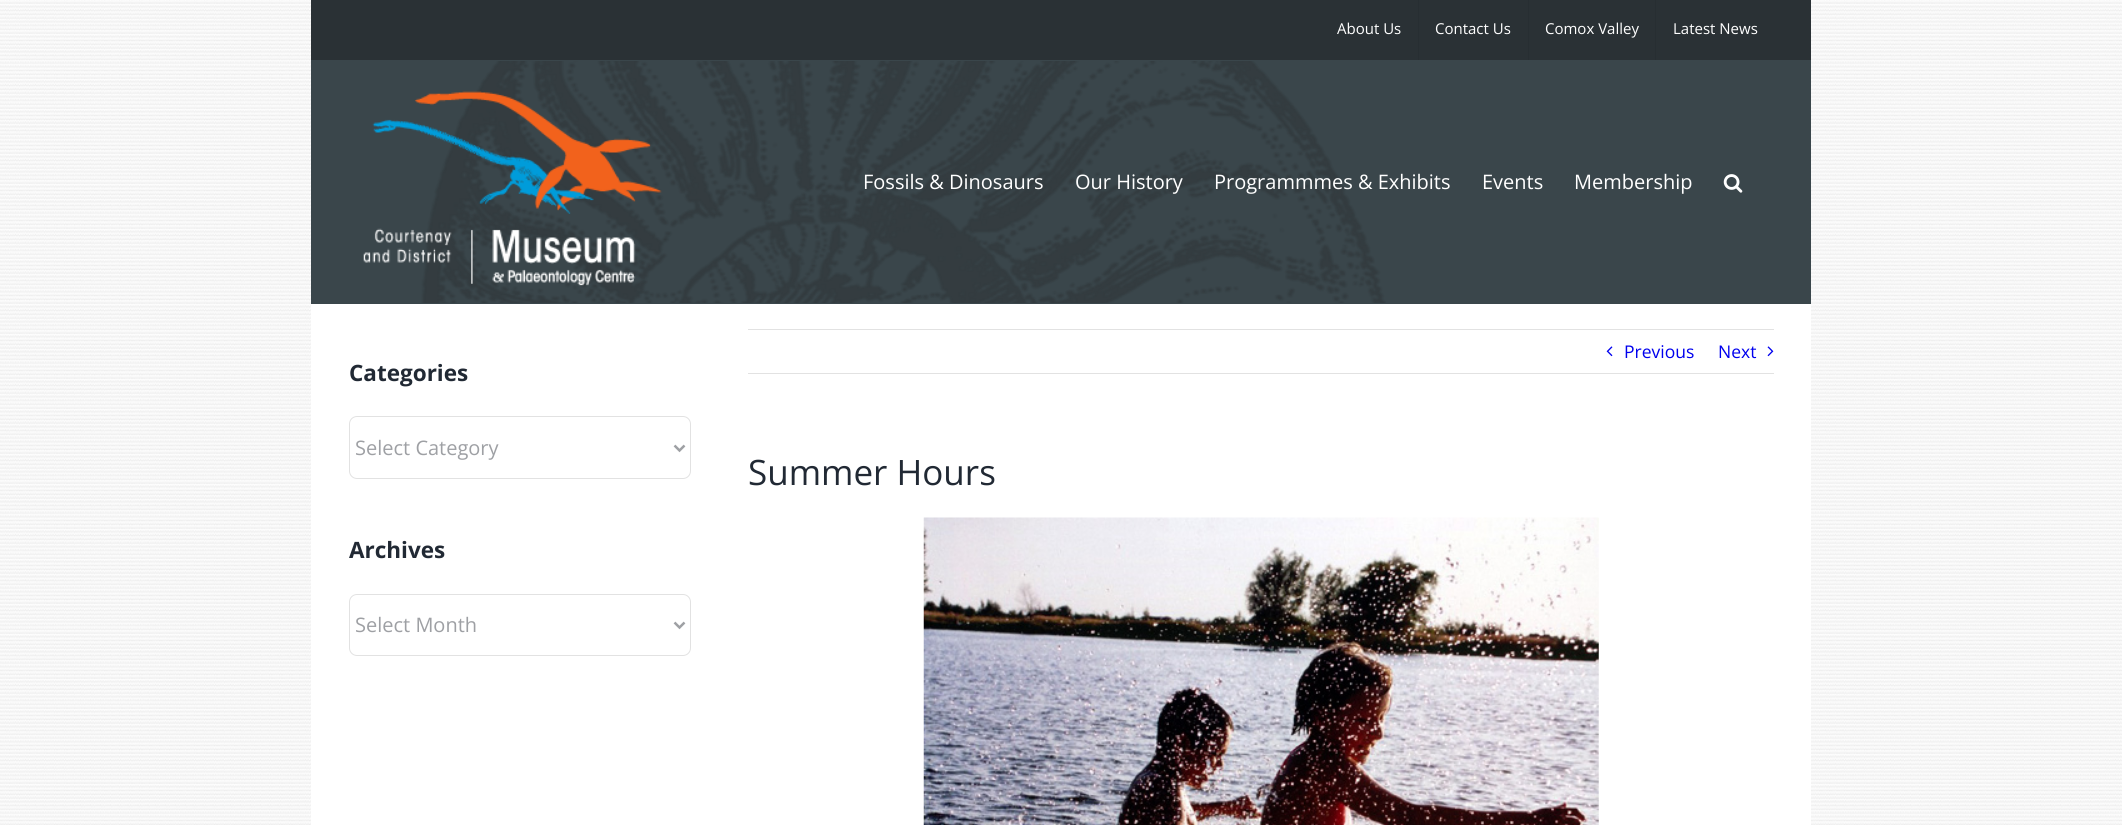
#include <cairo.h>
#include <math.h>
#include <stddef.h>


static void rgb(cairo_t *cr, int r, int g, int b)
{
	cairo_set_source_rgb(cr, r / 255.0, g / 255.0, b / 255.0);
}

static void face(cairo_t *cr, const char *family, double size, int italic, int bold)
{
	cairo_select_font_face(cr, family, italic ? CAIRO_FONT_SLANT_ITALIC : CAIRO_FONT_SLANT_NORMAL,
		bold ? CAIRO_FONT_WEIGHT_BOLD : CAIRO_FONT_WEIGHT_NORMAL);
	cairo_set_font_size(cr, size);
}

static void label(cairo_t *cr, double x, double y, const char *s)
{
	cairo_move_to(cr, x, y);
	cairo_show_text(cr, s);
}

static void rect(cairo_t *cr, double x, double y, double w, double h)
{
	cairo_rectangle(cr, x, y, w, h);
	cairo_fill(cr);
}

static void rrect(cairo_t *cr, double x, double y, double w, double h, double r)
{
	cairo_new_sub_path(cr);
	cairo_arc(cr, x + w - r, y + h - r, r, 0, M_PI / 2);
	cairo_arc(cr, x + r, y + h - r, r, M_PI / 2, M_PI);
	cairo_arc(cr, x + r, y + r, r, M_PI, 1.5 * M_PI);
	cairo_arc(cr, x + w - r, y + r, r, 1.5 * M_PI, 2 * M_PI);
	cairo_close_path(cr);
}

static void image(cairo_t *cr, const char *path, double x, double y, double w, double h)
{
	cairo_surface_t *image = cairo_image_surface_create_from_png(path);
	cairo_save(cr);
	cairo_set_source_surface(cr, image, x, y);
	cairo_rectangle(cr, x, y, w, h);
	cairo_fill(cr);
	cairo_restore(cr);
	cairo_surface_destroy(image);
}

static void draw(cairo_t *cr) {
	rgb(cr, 255, 255, 255);
	cairo_paint(cr);
	image(cr, "image0.png", 0, 0, 2122, 825);
	rgb(cr, 42, 49, 53);
	rect(cr, 311, 0, 1500, 60);
	rgb(cr, 58, 70, 75);
	rect(cr, 311, 60, 1500, 244);
	face(cr, "Open Sans", 15, 0, 0);
	rgb(cr, 255, 255, 255);
	label(cr, 1337, 34, "About Us");
	rgb(cr, 39, 46, 50);
	rect(cr, 1418, 0, 1, 60);
	rgb(cr, 255, 255, 255);
	label(cr, 1435, 34, "Contact Us");
	rgb(cr, 39, 46, 50);
	rect(cr, 1528, 0, 1, 60);
	rgb(cr, 255, 255, 255);
	label(cr, 1545, 34, "Comox Valley");
	rgb(cr, 39, 46, 50);
	rect(cr, 1655, 0, 1, 60);
	rgb(cr, 255, 255, 255);
	label(cr, 1673, 34, "Latest News");
	image(cr, "image1.png", 421, 61, 965, 242);
	image(cr, "image2.png", 363, 91, 299, 195);
	face(cr, "Open Sans", 20, 0, 0);
	label(cr, 863, 189, "Fossils & Dinosaurs");
	label(cr, 1075, 189, "Our History");
	label(cr, 1214, 189, "Programmmes & Exhibits");
	label(cr, 1482, 189, "Events");
	label(cr, 1574, 189, "Membership");
	image(cr, "image3.png", 1723, 174, 20, 19);
	rect(cr, 311, 304, 1500, 521);
	face(cr, "Open Sans", 22.5, 0, 1);
	rgb(cr, 33, 41, 52);
	label(cr, 349, 381, "Categories");
	rrect(cr, 349.5, 416.5, 341, 62, 7.5);
	rgb(cr, 226, 226, 226);
	cairo_set_line_width(cr, 1);
	cairo_stroke(cr);
	cairo_new_path(cr);
	cairo_move_to(cr, 674.5, 445.5);
	cairo_line_to(cr, 679.5, 450.5);
	cairo_line_to(cr, 684.5, 445.5);
	rgb(cr, 158, 160, 164);
	cairo_set_line_width(cr, 2.5);
	cairo_stroke(cr);
	face(cr, "Open Sans", 20, 0, 0);
	label(cr, 355, 455, "Select Category");
	face(cr, "Open Sans", 22.5, 0, 1);
	rgb(cr, 33, 41, 52);
	label(cr, 349, 558, "Archives");
	rrect(cr, 349.5, 594.5, 341, 61, 7.5);
	rgb(cr, 226, 226, 226);
	cairo_set_line_width(cr, 1);
	cairo_stroke(cr);
	cairo_new_path(cr);
	cairo_move_to(cr, 674.5, 622.5);
	cairo_line_to(cr, 679.5, 627.5);
	cairo_line_to(cr, 684.5, 622.5);
	rgb(cr, 158, 160, 164);
	cairo_set_line_width(cr, 2.5);
	cairo_stroke(cr);
	face(cr, "Open Sans", 20, 0, 0);
	label(cr, 355, 632, "Select Month");
	rgb(cr, 226, 226, 226);
	rect(cr, 748, 329, 1026, 1);
	rect(cr, 748, 373, 1026, 1);
	image(cr, "image4.png", 1606, 346, 7, 11);
	face(cr, "Open Sans", 17.5, 0, 0);
	rgb(cr, 0, 0, 238);
	label(cr, 1624, 358, "Previous");
	label(cr, 1718, 358, "Next");
	image(cr, "image5.png", 1767, 346, 7, 11);
	face(cr, "Open Sans", 35, 0, 0);
	rgb(cr, 33, 41, 52);
	label(cr, 748, 485, "Summer Hours");
	image(cr, "image6.png", 923, 517, 676, 308);
}

int main(void) {
	cairo_surface_t *surface = cairo_image_surface_create(CAIRO_FORMAT_RGB24, 2122, 825);
	cairo_t *cr = cairo_create(surface);
	cairo_font_options_t *options = cairo_font_options_create();
	cairo_font_options_set_hint_metrics(options, CAIRO_HINT_METRICS_OFF);
	cairo_font_options_set_hint_style(options, CAIRO_HINT_STYLE_NONE);
	cairo_set_font_options(cr, options);
	cairo_set_miter_limit(cr, 4);
	draw(cr);
	cairo_surface_write_to_png(surface, "render.png");
	cairo_font_options_destroy(options);
	cairo_destroy(cr);
	cairo_surface_destroy(surface);
	return 0;
}
